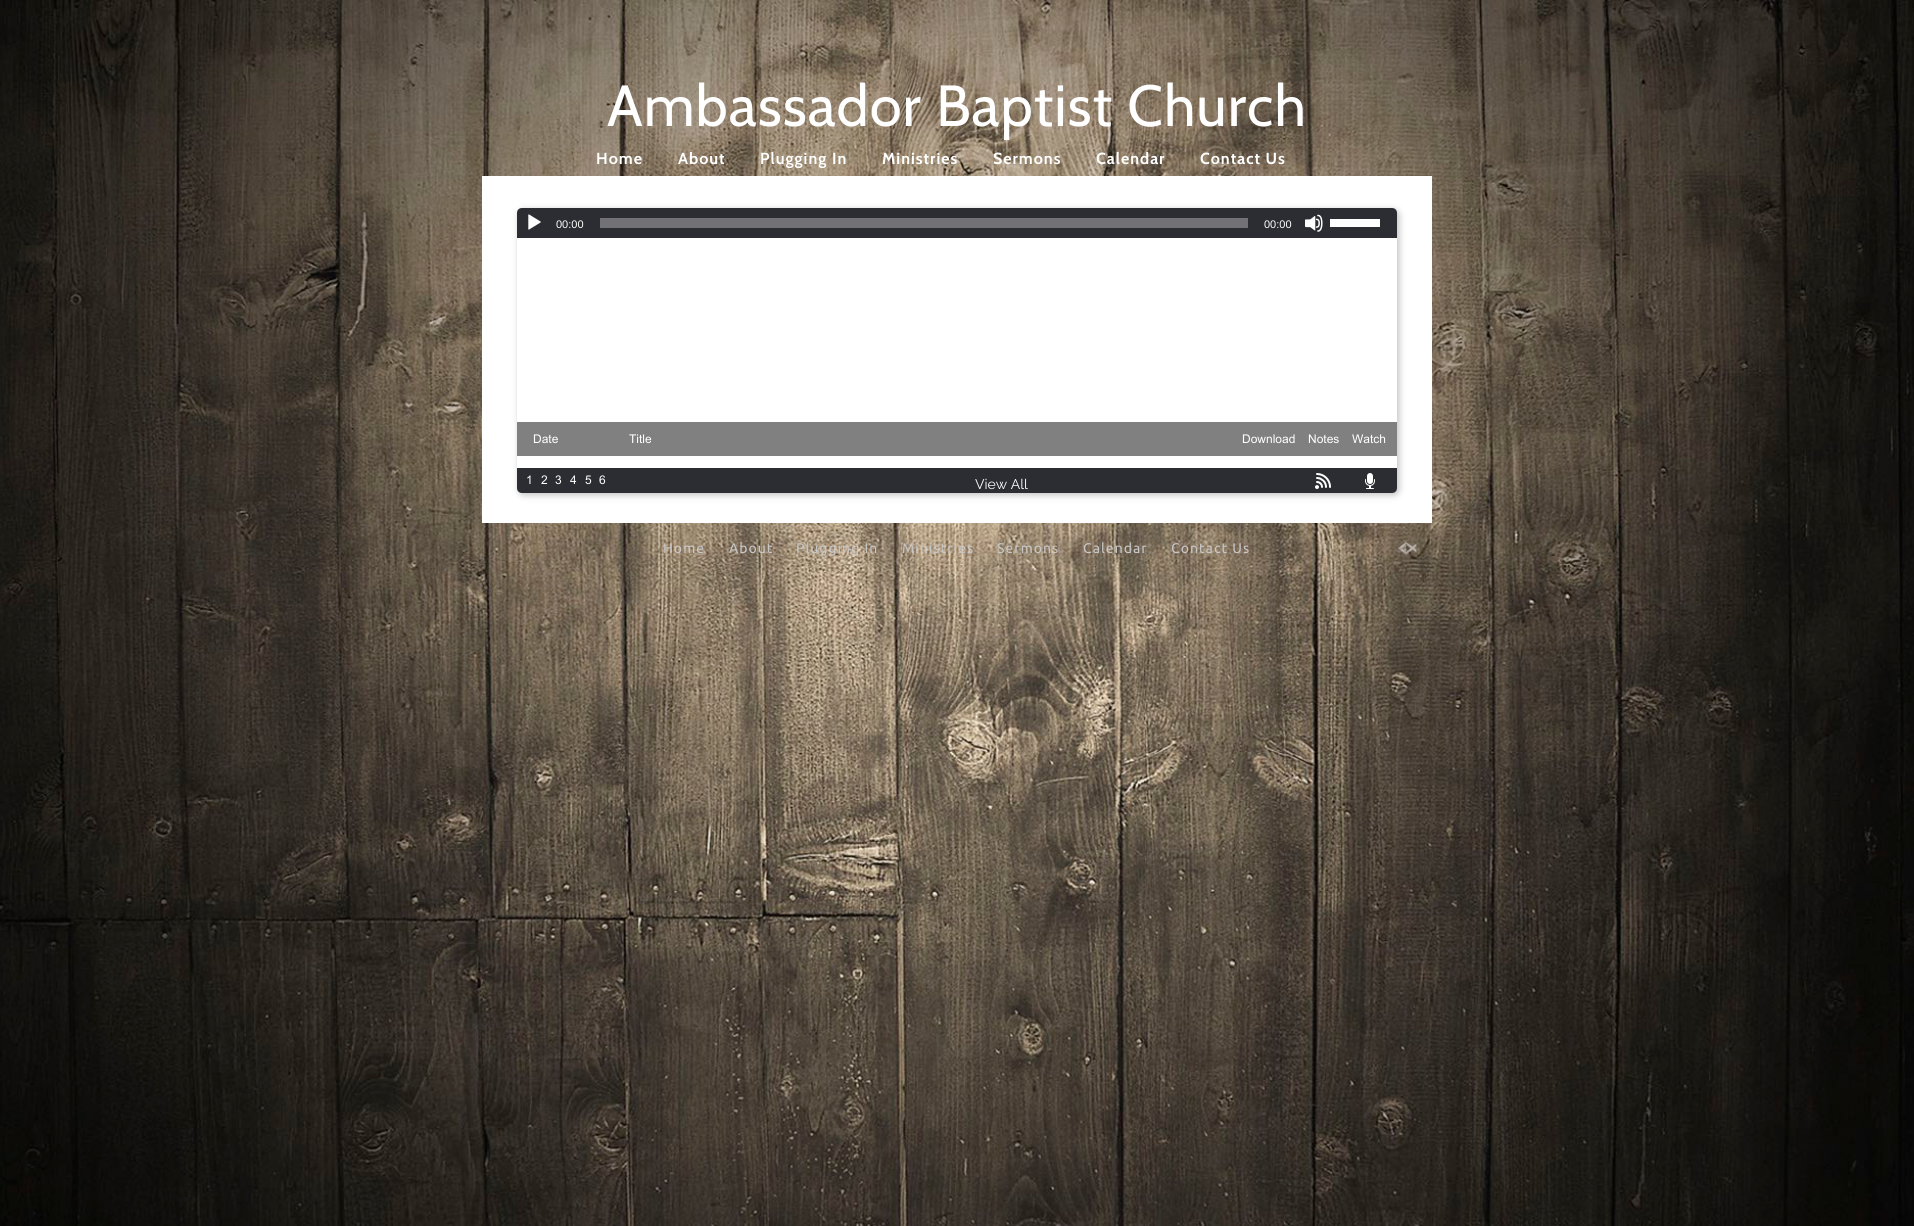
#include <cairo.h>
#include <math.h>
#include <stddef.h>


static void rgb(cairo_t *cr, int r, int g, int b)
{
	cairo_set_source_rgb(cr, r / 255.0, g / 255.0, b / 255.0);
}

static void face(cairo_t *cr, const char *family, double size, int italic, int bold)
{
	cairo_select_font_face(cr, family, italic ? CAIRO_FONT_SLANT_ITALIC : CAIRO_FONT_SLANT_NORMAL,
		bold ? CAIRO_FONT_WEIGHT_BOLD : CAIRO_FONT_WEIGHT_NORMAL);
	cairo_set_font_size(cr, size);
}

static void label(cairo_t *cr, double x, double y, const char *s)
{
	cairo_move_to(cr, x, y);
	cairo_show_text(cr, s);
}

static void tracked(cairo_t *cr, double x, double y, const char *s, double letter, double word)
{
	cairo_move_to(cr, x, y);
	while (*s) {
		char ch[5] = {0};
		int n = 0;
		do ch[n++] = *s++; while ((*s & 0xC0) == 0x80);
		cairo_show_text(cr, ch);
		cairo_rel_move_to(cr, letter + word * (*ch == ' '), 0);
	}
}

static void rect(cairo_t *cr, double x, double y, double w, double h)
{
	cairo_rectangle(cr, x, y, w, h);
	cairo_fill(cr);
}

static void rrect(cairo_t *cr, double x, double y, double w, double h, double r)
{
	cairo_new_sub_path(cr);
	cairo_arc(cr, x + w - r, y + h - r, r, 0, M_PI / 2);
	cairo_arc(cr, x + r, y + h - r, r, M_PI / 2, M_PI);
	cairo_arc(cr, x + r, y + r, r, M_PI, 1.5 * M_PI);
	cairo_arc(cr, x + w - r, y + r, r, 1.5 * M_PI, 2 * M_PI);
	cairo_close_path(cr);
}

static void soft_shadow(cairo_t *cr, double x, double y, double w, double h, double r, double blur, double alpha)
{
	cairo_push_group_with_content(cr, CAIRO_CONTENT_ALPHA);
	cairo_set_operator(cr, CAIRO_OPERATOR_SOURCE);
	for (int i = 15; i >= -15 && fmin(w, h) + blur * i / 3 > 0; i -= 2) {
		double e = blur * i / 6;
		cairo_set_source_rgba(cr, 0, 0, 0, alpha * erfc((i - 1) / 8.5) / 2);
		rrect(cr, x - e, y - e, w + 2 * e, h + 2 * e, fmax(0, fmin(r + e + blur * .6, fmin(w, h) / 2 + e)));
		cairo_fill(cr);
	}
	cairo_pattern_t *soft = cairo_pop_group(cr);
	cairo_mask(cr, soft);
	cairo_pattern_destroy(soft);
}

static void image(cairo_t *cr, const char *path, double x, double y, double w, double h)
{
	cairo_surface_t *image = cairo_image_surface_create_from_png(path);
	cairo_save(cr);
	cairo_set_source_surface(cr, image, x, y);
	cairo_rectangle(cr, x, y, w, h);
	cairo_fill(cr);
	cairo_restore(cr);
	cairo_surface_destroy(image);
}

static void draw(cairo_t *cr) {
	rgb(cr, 255, 255, 255);
	cairo_paint(cr);
	image(cr, "image0.png", 0, 0, 1914, 1226);
	face(cr, "Cabin", 58, 0, 0);
	rgb(cr, 255, 255, 255);
	tracked(cr, 607, 126, "Ambassador Baptist Church", 1, 0);
	face(cr, "Cabin", 16, 0, 1);
	tracked(cr, 596, 164, "Home", 1, 0);
	tracked(cr, 678, 164, "About", 1, 0);
	tracked(cr, 760, 164, "Plugging In", 1, 0);
	tracked(cr, 882, 164, "Ministries", 1, 0);
	tracked(cr, 993, 164, "Sermons", 1, 0);
	tracked(cr, 1096, 164, "Calendar", 1, 0);
	tracked(cr, 1200, 164, "Contact Us", 1, 0);
	rect(cr, 482, 176, 950, 347);
	rgb(cr, 0, 0, 0);
	soft_shadow(cr, 519, 210, 880, 285, 5, 3.5, 0.25);
	rgb(cr, 255, 255, 255);
	rrect(cr, 517, 208, 880, 285, 5);
	cairo_fill(cr);
	rgb(cr, 44, 45, 51);
	cairo_new_path(cr);
	cairo_move_to(cr, 522, 208);
	cairo_line_to(cr, 1392, 208);
	cairo_curve_to(cr, 1395, 208, 1397, 210, 1397, 213);
	cairo_line_to(cr, 1397, 238);
	cairo_line_to(cr, 517, 238);
	cairo_line_to(cr, 517, 213);
	cairo_curve_to(cr, 517, 210, 519, 208, 522, 208);
	cairo_close_path(cr);
	cairo_fill(cr);
	image(cr, "image1.png", 528, 214, 13, 16);
	face(cr, "Liberation Sans", 11, 0, 0);
	rgb(cr, 255, 255, 255);
	label(cr, 556, 228, "00:00");
	rgb(cr, 114, 114, 118);
	rect(cr, 600, 218, 648, 10);
	rgb(cr, 255, 255, 255);
	label(cr, 1264, 228, "00:00");
	image(cr, "image2.png", 1305, 214, 18, 18);
	rect(cr, 1330, 219, 50, 8);
	rgb(cr, 128, 128, 128);
	rect(cr, 517, 422, 880, 34);
	face(cr, "Arial", 12, 0, 0);
	rgb(cr, 255, 255, 255);
	label(cr, 533, 443, "Date");
	label(cr, 629, 443, "Title");
	label(cr, 1242, 443, "Download");
	label(cr, 1308, 443, "Notes");
	label(cr, 1352, 443, "Watch");
	rgb(cr, 44, 45, 51);
	cairo_new_path(cr);
	cairo_move_to(cr, 517, 468);
	cairo_line_to(cr, 1397, 468);
	cairo_line_to(cr, 1397, 488);
	cairo_curve_to(cr, 1397, 491, 1395, 493, 1392, 493);
	cairo_line_to(cr, 522, 493);
	cairo_curve_to(cr, 519, 493, 517, 491, 517, 488);
	cairo_close_path(cr);
	cairo_fill(cr);
	rgb(cr, 255, 255, 255);
	label(cr, 526, 484, "1");
	label(cr, 541, 484, "2");
	label(cr, 555, 484, "3");
	label(cr, 570, 484, "4");
	label(cr, 585, 484, "5");
	label(cr, 599, 484, "6");
	face(cr, "Raleway", 14, 0, 0);
	label(cr, 975, 489, "View All");
	image(cr, "image3.png", 1315, 473, 16, 16);
	image(cr, "image4.png", 1365, 473, 10, 16);
	face(cr, "Ubuntu", 14, 0, 0);
	rgb(cr, 200, 199, 199);
	tracked(cr, 663, 553, "Home", 1, 0);
	tracked(cr, 729, 553, "About", 1, 0);
	tracked(cr, 796, 553, "Plugging In", 1, 0);
	tracked(cr, 902, 553, "Ministries", 1, 0);
	tracked(cr, 997, 553, "Sermons", 1, 0);
	tracked(cr, 1083, 553, "Calendar", 1, 0);
	tracked(cr, 1171, 553, "Contact Us", 1, 0);
	image(cr, "image5.png", 1398, 542, 19, 13);
}

int main(void) {
	cairo_surface_t *surface = cairo_image_surface_create(CAIRO_FORMAT_RGB24, 1914, 1226);
	cairo_t *cr = cairo_create(surface);
	cairo_font_options_t *options = cairo_font_options_create();
	cairo_font_options_set_hint_metrics(options, CAIRO_HINT_METRICS_OFF);
	cairo_font_options_set_hint_style(options, CAIRO_HINT_STYLE_NONE);
	cairo_set_font_options(cr, options);
	cairo_set_miter_limit(cr, 4);
	draw(cr);
	cairo_surface_write_to_png(surface, "render.png");
	cairo_font_options_destroy(options);
	cairo_destroy(cr);
	cairo_surface_destroy(surface);
	return 0;
}
